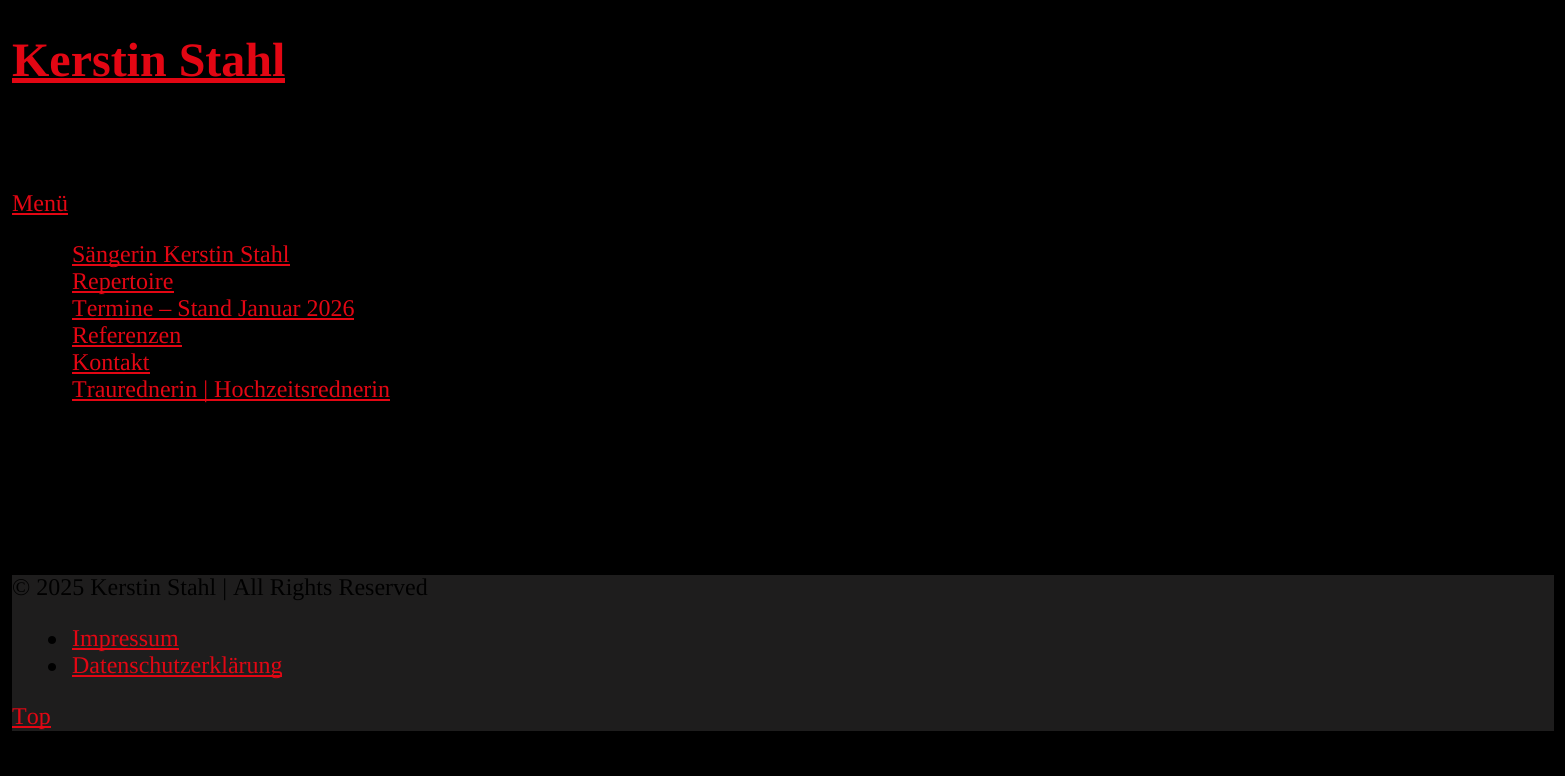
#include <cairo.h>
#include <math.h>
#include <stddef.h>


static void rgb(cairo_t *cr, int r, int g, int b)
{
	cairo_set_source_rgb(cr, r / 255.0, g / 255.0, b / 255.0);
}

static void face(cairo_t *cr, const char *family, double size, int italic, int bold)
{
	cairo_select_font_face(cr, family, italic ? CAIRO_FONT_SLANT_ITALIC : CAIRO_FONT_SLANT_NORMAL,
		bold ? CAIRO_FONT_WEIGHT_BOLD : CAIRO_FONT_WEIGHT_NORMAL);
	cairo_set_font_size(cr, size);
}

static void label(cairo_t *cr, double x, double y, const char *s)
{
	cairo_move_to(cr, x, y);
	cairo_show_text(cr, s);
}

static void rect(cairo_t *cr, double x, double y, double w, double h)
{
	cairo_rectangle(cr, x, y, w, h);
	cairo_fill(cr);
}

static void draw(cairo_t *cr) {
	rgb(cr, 0, 0, 0);
	cairo_paint(cr);
	face(cr, "Liberation Serif", 48, 0, 1);
	rgb(cr, 227, 6, 19);
	label(cr, 12, 76, "Kerstin Stahl");
	rect(cr, 12, 78, 273, 5);
	face(cr, "Liberation Serif", 24, 0, 0);
	label(cr, 12, 211, "Menü");
	rect(cr, 12, 213, 56, 2);
	rect(cr, 72, 264, 218, 2);
	label(cr, 72, 262, "Sängerin Kerstin Stahl");
	rect(cr, 72, 291, 102, 2);
	label(cr, 72, 289, "Repertoire");
	label(cr, 72, 316, "Termine – Stand Januar 2026");
	rect(cr, 72, 318, 282, 2);
	label(cr, 72, 343, "Referenzen");
	rect(cr, 72, 345, 110, 2);
	label(cr, 72, 370, "Kontakt");
	rect(cr, 72, 372, 78, 2);
	rect(cr, 72, 399, 318, 2);
	label(cr, 72, 397, "Traurednerin | Hochzeitsrednerin");
	rgb(cr, 30, 29, 29);
	rect(cr, 12, 575, 1542, 156);
	rgb(cr, 0, 0, 0);
	label(cr, 12, 595, "© 2025 Kerstin Stahl | All Rights Reserved");
	cairo_new_path(cr);
	cairo_arc(cr, 52, 640, 4, 0, 2 * M_PI);
	cairo_fill(cr);
	rgb(cr, 227, 6, 19);
	rect(cr, 72, 648, 107, 2);
	label(cr, 72, 646, "Impressum");
	rgb(cr, 0, 0, 0);
	cairo_new_path(cr);
	cairo_arc(cr, 52, 667, 4, 0, 2 * M_PI);
	cairo_fill(cr);
	rgb(cr, 227, 6, 19);
	rect(cr, 72, 675, 210, 2);
	label(cr, 72, 673, "Datenschutzerklärung");
	rect(cr, 12, 726, 39, 2);
	label(cr, 12, 724, "Top");
}

int main(void) {
	cairo_surface_t *surface = cairo_image_surface_create(CAIRO_FORMAT_RGB24, 1565, 776);
	cairo_t *cr = cairo_create(surface);
	cairo_font_options_t *options = cairo_font_options_create();
	cairo_font_options_set_hint_metrics(options, CAIRO_HINT_METRICS_OFF);
	cairo_font_options_set_hint_style(options, CAIRO_HINT_STYLE_NONE);
	cairo_set_font_options(cr, options);
	cairo_set_miter_limit(cr, 4);
	draw(cr);
	cairo_surface_write_to_png(surface, "render.png");
	cairo_font_options_destroy(options);
	cairo_destroy(cr);
	cairo_surface_destroy(surface);
	return 0;
}
